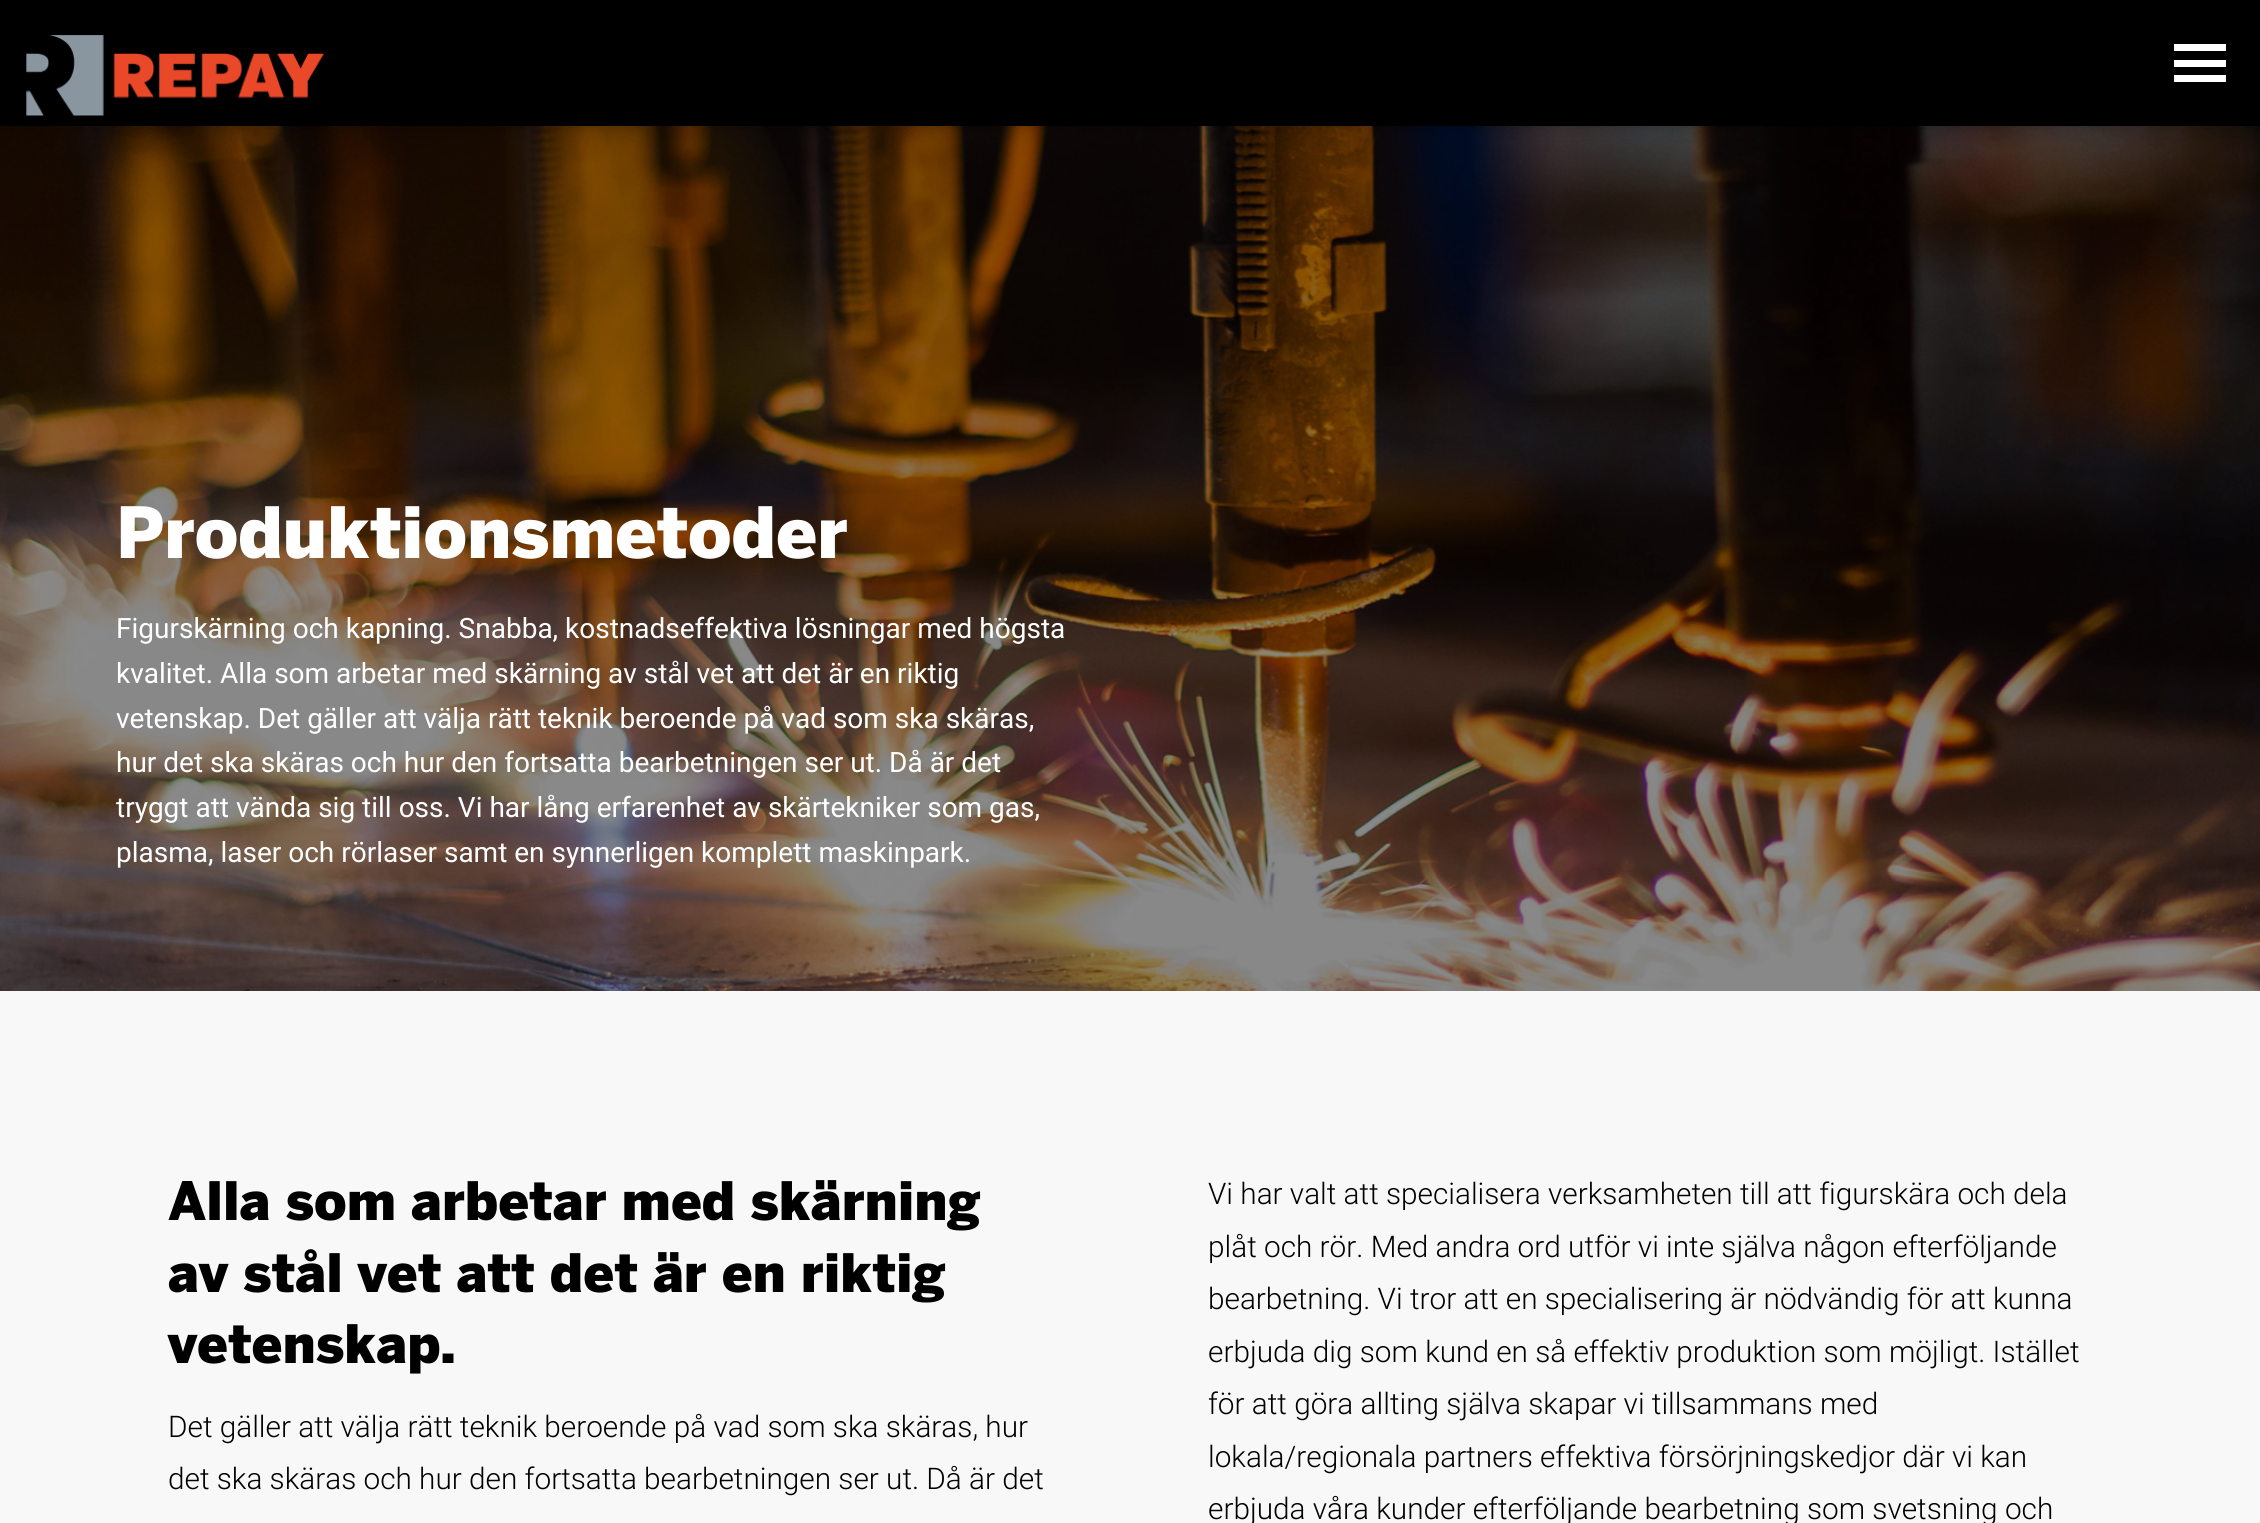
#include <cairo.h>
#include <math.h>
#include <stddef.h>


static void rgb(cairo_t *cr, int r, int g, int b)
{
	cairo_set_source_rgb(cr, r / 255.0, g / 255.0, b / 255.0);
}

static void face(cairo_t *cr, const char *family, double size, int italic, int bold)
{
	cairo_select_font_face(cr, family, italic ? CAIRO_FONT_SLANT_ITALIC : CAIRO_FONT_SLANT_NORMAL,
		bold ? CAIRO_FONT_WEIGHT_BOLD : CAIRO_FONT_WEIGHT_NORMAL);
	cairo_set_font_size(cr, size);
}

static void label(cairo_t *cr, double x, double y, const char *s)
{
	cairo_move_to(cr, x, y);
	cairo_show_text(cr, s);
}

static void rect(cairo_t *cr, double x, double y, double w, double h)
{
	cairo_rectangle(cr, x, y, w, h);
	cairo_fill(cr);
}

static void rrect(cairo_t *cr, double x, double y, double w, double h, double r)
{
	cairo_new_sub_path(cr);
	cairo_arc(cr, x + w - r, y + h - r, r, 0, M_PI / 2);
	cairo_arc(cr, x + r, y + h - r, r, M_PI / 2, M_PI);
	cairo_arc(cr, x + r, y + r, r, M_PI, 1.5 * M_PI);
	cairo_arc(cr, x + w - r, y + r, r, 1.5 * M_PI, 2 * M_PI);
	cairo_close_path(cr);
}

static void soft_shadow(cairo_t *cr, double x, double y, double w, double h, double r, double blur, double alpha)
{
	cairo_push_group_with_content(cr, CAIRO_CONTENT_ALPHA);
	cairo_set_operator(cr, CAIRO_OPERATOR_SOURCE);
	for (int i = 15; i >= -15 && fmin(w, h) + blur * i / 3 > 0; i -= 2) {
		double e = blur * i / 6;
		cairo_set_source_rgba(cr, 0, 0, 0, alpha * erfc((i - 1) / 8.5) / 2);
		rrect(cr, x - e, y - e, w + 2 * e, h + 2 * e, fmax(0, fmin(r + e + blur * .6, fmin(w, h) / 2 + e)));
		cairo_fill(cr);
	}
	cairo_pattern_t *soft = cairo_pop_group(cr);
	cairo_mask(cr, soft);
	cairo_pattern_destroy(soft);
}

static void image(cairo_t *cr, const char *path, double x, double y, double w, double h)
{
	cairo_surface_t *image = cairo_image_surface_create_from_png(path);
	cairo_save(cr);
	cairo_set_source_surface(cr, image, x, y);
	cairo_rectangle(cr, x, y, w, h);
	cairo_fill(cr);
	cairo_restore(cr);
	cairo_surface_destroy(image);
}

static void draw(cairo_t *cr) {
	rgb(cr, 255, 255, 255);
	cairo_paint(cr);
	image(cr, "image1.png", 0, 126, 2260, 865);
	rgb(cr, 0, 0, 0);
	soft_shadow(cr, 0, 0, 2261, 126, 0, 9, 0.27);
	rgb(cr, 0, 0, 0);
	rect(cr, 0, 0, 2260, 126);
	image(cr, "image0.png", 26, 35, 298, 81);
	rgb(cr, 255, 255, 255);
	rect(cr, 2174, 44, 52, 7);
	rect(cr, 2174, 60, 52, 7);
	rect(cr, 2174, 75, 52, 7);
	face(cr, "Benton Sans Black", 70, 0, 0);
	label(cr, 116, 558, "Produktionsmetoder");
	face(cr, "Roboto", 28, 0, 0);
	label(cr, 116, 638, "Figurskärning och kapning. Snabba, kostnadseffektiva lösningar med högsta");
	label(cr, 116, 683, "kvalitet. Alla som arbetar med skärning av stål vet att det är en riktig");
	label(cr, 116, 728, "vetenskap. Det gäller att välja rätt teknik beroende på vad som ska skäras,");
	label(cr, 116, 772, "hur det ska skäras och hur den fortsatta bearbetningen ser ut. Då är det");
	label(cr, 116, 817, "tryggt att vända sig till oss. Vi har lång erfarenhet av skärtekniker som gas,");
	label(cr, 116, 862, "plasma, laser och rörlaser samt en synnerligen komplett maskinpark.");
	rgb(cr, 248, 248, 248);
	rect(cr, 0, 991, 2260, 532);
	face(cr, "Benton Sans Black", 52.5, 0, 0);
	rgb(cr, 0, 0, 0);
	label(cr, 168, 1220, "Alla som arbetar med skärning");
	label(cr, 168, 1292, "av stål vet att det är en riktig");
	label(cr, 168, 1363, "vetenskap.");
	face(cr, "Roboto Light", 29.75, 0, 0);
	label(cr, 168, 1437, "Det gäller att välja rätt teknik beroende på vad som ska skäras, hur");
	label(cr, 168, 1489, "det ska skäras och hur den fortsatta bearbetningen ser ut. Då är det");
	label(cr, 1208, 1204, "Vi har valt att specialisera verksamheten till att figurskära och dela");
	label(cr, 1208, 1257, "plåt och rör. Med andra ord utför vi inte själva någon efterföljande");
	label(cr, 1208, 1309, "bearbetning. Vi tror att en specialisering är nödvändig för att kunna");
	label(cr, 1208, 1362, "erbjuda dig som kund en så effektiv produktion som möjligt. Istället");
	label(cr, 1208, 1414, "för att göra allting själva skapar vi tillsammans med");
	label(cr, 1208, 1467, "lokala/regionala partners effektiva försörjningskedjor där vi kan");
	label(cr, 1208, 1519, "erbjuda våra kunder efterföljande bearbetning som svetsning och");
}

int main(void) {
	cairo_surface_t *surface = cairo_image_surface_create(CAIRO_FORMAT_RGB24, 2260, 1523);
	cairo_t *cr = cairo_create(surface);
	cairo_font_options_t *options = cairo_font_options_create();
	cairo_font_options_set_hint_metrics(options, CAIRO_HINT_METRICS_OFF);
	cairo_font_options_set_hint_style(options, CAIRO_HINT_STYLE_NONE);
	cairo_set_font_options(cr, options);
	cairo_set_miter_limit(cr, 4);
	draw(cr);
	cairo_surface_write_to_png(surface, "render.png");
	cairo_font_options_destroy(options);
	cairo_destroy(cr);
	cairo_surface_destroy(surface);
	return 0;
}
